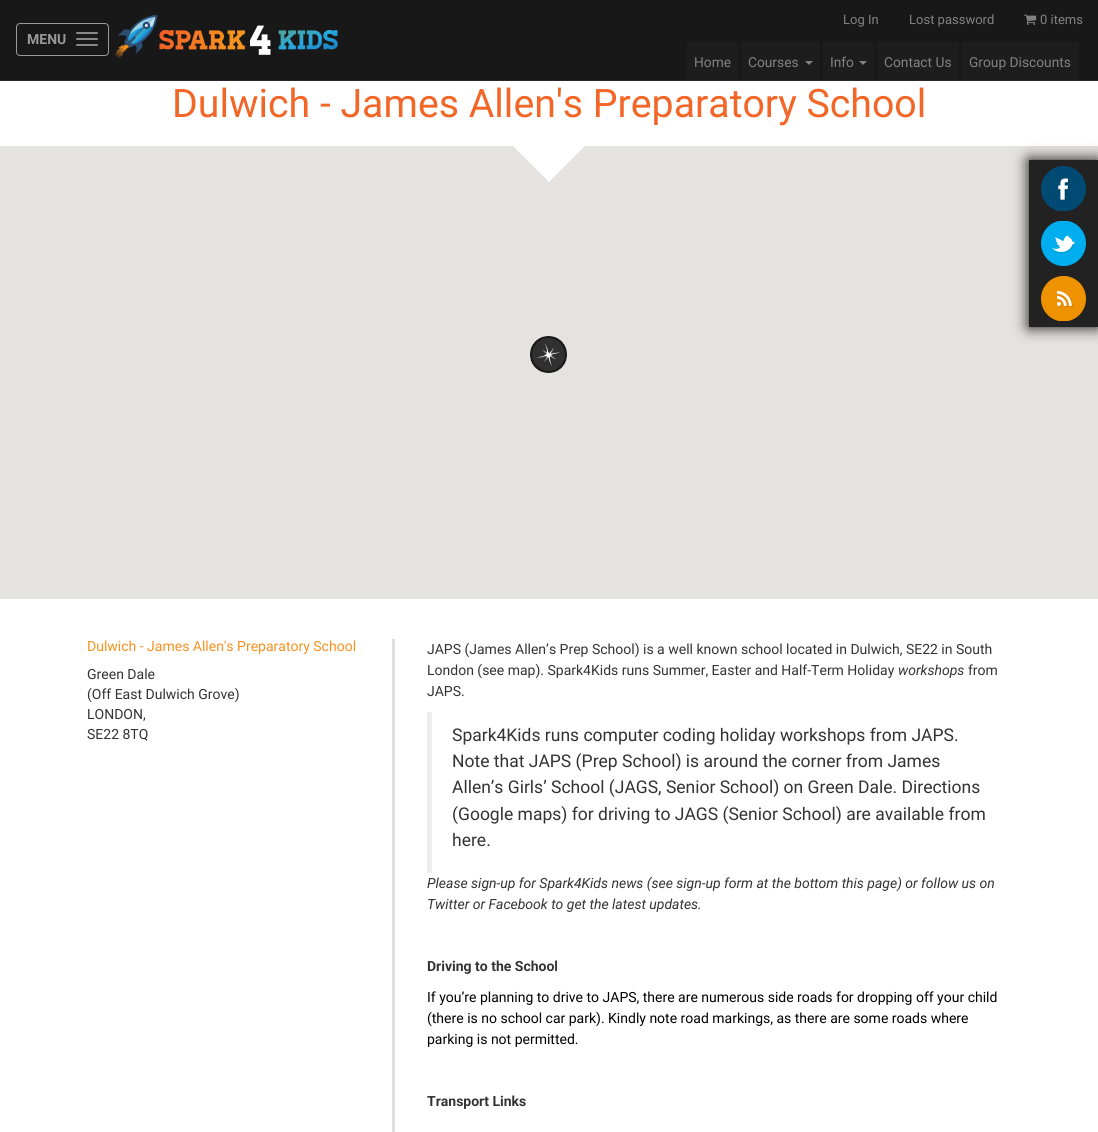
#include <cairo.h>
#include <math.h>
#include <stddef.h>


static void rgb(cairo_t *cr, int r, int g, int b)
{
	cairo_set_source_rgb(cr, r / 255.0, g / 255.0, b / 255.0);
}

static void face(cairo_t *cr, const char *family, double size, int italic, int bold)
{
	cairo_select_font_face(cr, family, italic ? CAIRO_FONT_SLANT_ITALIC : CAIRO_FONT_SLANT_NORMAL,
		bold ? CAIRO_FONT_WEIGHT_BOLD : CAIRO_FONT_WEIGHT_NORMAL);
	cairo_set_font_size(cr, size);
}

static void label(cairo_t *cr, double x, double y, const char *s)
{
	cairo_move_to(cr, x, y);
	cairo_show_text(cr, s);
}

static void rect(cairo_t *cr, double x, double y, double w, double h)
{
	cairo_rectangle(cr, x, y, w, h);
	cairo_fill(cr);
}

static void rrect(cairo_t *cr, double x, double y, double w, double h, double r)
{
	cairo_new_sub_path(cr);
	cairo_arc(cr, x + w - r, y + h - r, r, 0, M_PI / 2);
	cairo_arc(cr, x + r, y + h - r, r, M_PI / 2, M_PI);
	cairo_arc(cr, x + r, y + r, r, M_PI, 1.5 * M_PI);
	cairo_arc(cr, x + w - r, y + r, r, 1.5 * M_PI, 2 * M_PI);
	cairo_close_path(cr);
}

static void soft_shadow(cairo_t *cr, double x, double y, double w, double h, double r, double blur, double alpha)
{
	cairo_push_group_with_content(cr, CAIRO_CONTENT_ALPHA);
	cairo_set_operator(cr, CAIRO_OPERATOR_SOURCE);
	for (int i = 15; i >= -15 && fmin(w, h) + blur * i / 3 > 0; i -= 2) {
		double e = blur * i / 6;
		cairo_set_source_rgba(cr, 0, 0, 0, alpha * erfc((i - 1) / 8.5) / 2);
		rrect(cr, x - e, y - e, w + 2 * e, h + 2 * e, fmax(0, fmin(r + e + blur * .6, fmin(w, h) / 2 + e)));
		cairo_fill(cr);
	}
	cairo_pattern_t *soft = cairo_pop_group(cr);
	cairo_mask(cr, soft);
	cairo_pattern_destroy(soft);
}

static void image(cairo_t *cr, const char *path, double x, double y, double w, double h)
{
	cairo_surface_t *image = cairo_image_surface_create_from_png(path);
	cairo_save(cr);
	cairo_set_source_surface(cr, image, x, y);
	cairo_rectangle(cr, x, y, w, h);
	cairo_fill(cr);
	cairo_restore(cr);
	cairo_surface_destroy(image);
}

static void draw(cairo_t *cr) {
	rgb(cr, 255, 255, 255);
	cairo_paint(cr);
	rgb(cr, 24, 24, 24);
	rect(cr, 0, 0, 1098, 80);
	rgb(cr, 41, 41, 41);
	rect(cr, 0, 80, 1098, 1);
	image(cr, "image0.png", 114, 14, 224, 45);
	face(cr, "Roboto", 13, 0, 0);
	rgb(cr, 130, 130, 130);
	label(cr, 843, 24, "Log In");
	label(cr, 909, 24, "Lost password");
	image(cr, "image1.png", 1024, 14, 13, 11);
	label(cr, 1040, 24, "0 items");
	rrect(cr, 16.5, 23.5, 92, 32, 3.5);
	rgb(cr, 153, 153, 153);
	cairo_set_line_width(cr, 1);
	cairo_stroke(cr);
	face(cr, "Roboto", 14, 0, 1);
	label(cr, 27, 44, "MENU");
	rgb(cr, 136, 136, 136);
	rrect(cr, 76, 32, 22, 2, 1);
	cairo_fill(cr);
	rrect(cr, 76, 38, 22, 2, 1);
	cairo_fill(cr);
	rrect(cr, 76, 44, 22, 2, 1);
	cairo_fill(cr);
	rgb(cr, 29, 29, 29);
	rect(cr, 687, 42, 51, 38);
	face(cr, "Roboto", 13.75, 0, 0);
	rgb(cr, 130, 130, 130);
	label(cr, 694, 67, "Home");
	rgb(cr, 29, 29, 29);
	rect(cr, 741, 42, 79, 38);
	rgb(cr, 130, 130, 130);
	label(cr, 748, 67, "Courses");
	cairo_new_path(cr);
	cairo_move_to(cr, 805, 61);
	cairo_line_to(cr, 813, 61);
	cairo_line_to(cr, 809, 65);
	cairo_close_path(cr);
	cairo_fill(cr);
	rgb(cr, 29, 29, 29);
	rect(cr, 823, 42, 51, 38);
	rgb(cr, 130, 130, 130);
	label(cr, 830, 67, "Info");
	cairo_new_path(cr);
	cairo_move_to(cr, 859, 61);
	cairo_line_to(cr, 867, 61);
	cairo_line_to(cr, 863, 65);
	cairo_close_path(cr);
	cairo_fill(cr);
	rgb(cr, 29, 29, 29);
	rect(cr, 877, 42, 82, 38);
	rgb(cr, 130, 130, 130);
	label(cr, 884, 67, "Contact Us");
	rgb(cr, 29, 29, 29);
	rect(cr, 962, 42, 117, 38);
	rgb(cr, 130, 130, 130);
	label(cr, 969, 67, "Group Discounts");
	face(cr, "Roboto", 39.25, 0, 0);
	rgb(cr, 242, 102, 39);
	label(cr, 172, 117, "Dulwich - James Allen's Preparatory School");
	rgb(cr, 229, 227, 223);
	rect(cr, 0, 146, 1098, 453);
	image(cr, "image2.png", 530, 336, 37, 37);
	rgb(cr, 255, 255, 255);
	cairo_new_path(cr);
	cairo_move_to(cr, 513, 146);
	cairo_line_to(cr, 585, 146);
	cairo_line_to(cr, 549, 182);
	cairo_close_path(cr);
	cairo_fill(cr);
	face(cr, "Roboto", 14, 0, 0);
	rgb(cr, 248, 145, 30);
	label(cr, 87, 651, "Dulwich - James Allen's Preparatory School");
	rgb(cr, 51, 51, 51);
	label(cr, 87, 679, "Green Dale");
	label(cr, 87, 699, "(Off East Dulwich Grove)");
	label(cr, 87, 719, "LONDON,");
	label(cr, 87, 739, "SE22 8TQ");
	rgb(cr, 221, 221, 221);
	rect(cr, 392, 639, 3, 493);
	rgb(cr, 51, 51, 51);
	label(cr, 427, 654, "JAPS (James Allen’s Prep School) is a well known school located in Dulwich, SE22 in South");
	label(cr, 427, 675, "London (see map). Spark4Kids runs Summer, Easter and Half-Term Holiday");
	face(cr, "Roboto", 14, 1, 0);
	label(cr, 898, 675, "workshops");
	face(cr, "Roboto", 14, 0, 0);
	label(cr, 968, 675, "from");
	label(cr, 427, 696, "JAPS.");
	rgb(cr, 238, 238, 238);
	rect(cr, 427, 712, 5, 161);
	face(cr, "Roboto", 17.5, 0, 0);
	rgb(cr, 51, 51, 51);
	label(cr, 452, 741, "Spark4Kids runs computer coding holiday workshops from JAPS.");
	label(cr, 452, 767, "Note that JAPS (Prep School) is around the corner from James");
	label(cr, 452, 793, "Allen’s Girls’ School (JAGS, Senior School) on Green Dale. Directions");
	label(cr, 452, 820, "(Google maps) for driving to JAGS (Senior School) are available from");
	label(cr, 452, 846, "here.");
	face(cr, "Roboto", 14, 1, 0);
	label(cr, 427, 888, "Please sign-up for Spark4Kids news (see sign-up form at the bottom this page) or follow us on");
	label(cr, 427, 909, "Twitter or Facebook to get the latest updates.");
	face(cr, "Roboto", 14, 0, 1);
	label(cr, 427, 971, "Driving to the School");
	face(cr, "Roboto", 14, 0, 0);
	rgb(cr, 0, 0, 0);
	label(cr, 427, 1002, "If you’re planning to drive to JAPS, there are numerous side roads for dropping off your child");
	label(cr, 427, 1023, "(there is no school car park). Kindly note road markings, as there are some roads where");
	label(cr, 427, 1044, "parking is not permitted.");
	face(cr, "Roboto", 14, 0, 1);
	rgb(cr, 51, 51, 51);
	label(cr, 427, 1106, "Transport Links");
	rgb(cr, 9, 9, 9);
	soft_shadow(cr, 1029, 160, 69, 167, 0, 7.5, 1);
	rgb(cr, 34, 34, 34);
	rect(cr, 1029, 160, 69, 167);
	image(cr, "image3.png", 1041, 166, 45, 45);
	image(cr, "image4.png", 1041, 221, 45, 45);
	image(cr, "image5.png", 1041, 276, 45, 45);
}

int main(void) {
	cairo_surface_t *surface = cairo_image_surface_create(CAIRO_FORMAT_RGB24, 1098, 1132);
	cairo_t *cr = cairo_create(surface);
	cairo_font_options_t *options = cairo_font_options_create();
	cairo_font_options_set_hint_metrics(options, CAIRO_HINT_METRICS_OFF);
	cairo_font_options_set_hint_style(options, CAIRO_HINT_STYLE_NONE);
	cairo_set_font_options(cr, options);
	cairo_set_miter_limit(cr, 4);
	draw(cr);
	cairo_surface_write_to_png(surface, "render.png");
	cairo_font_options_destroy(options);
	cairo_destroy(cr);
	cairo_surface_destroy(surface);
	return 0;
}
